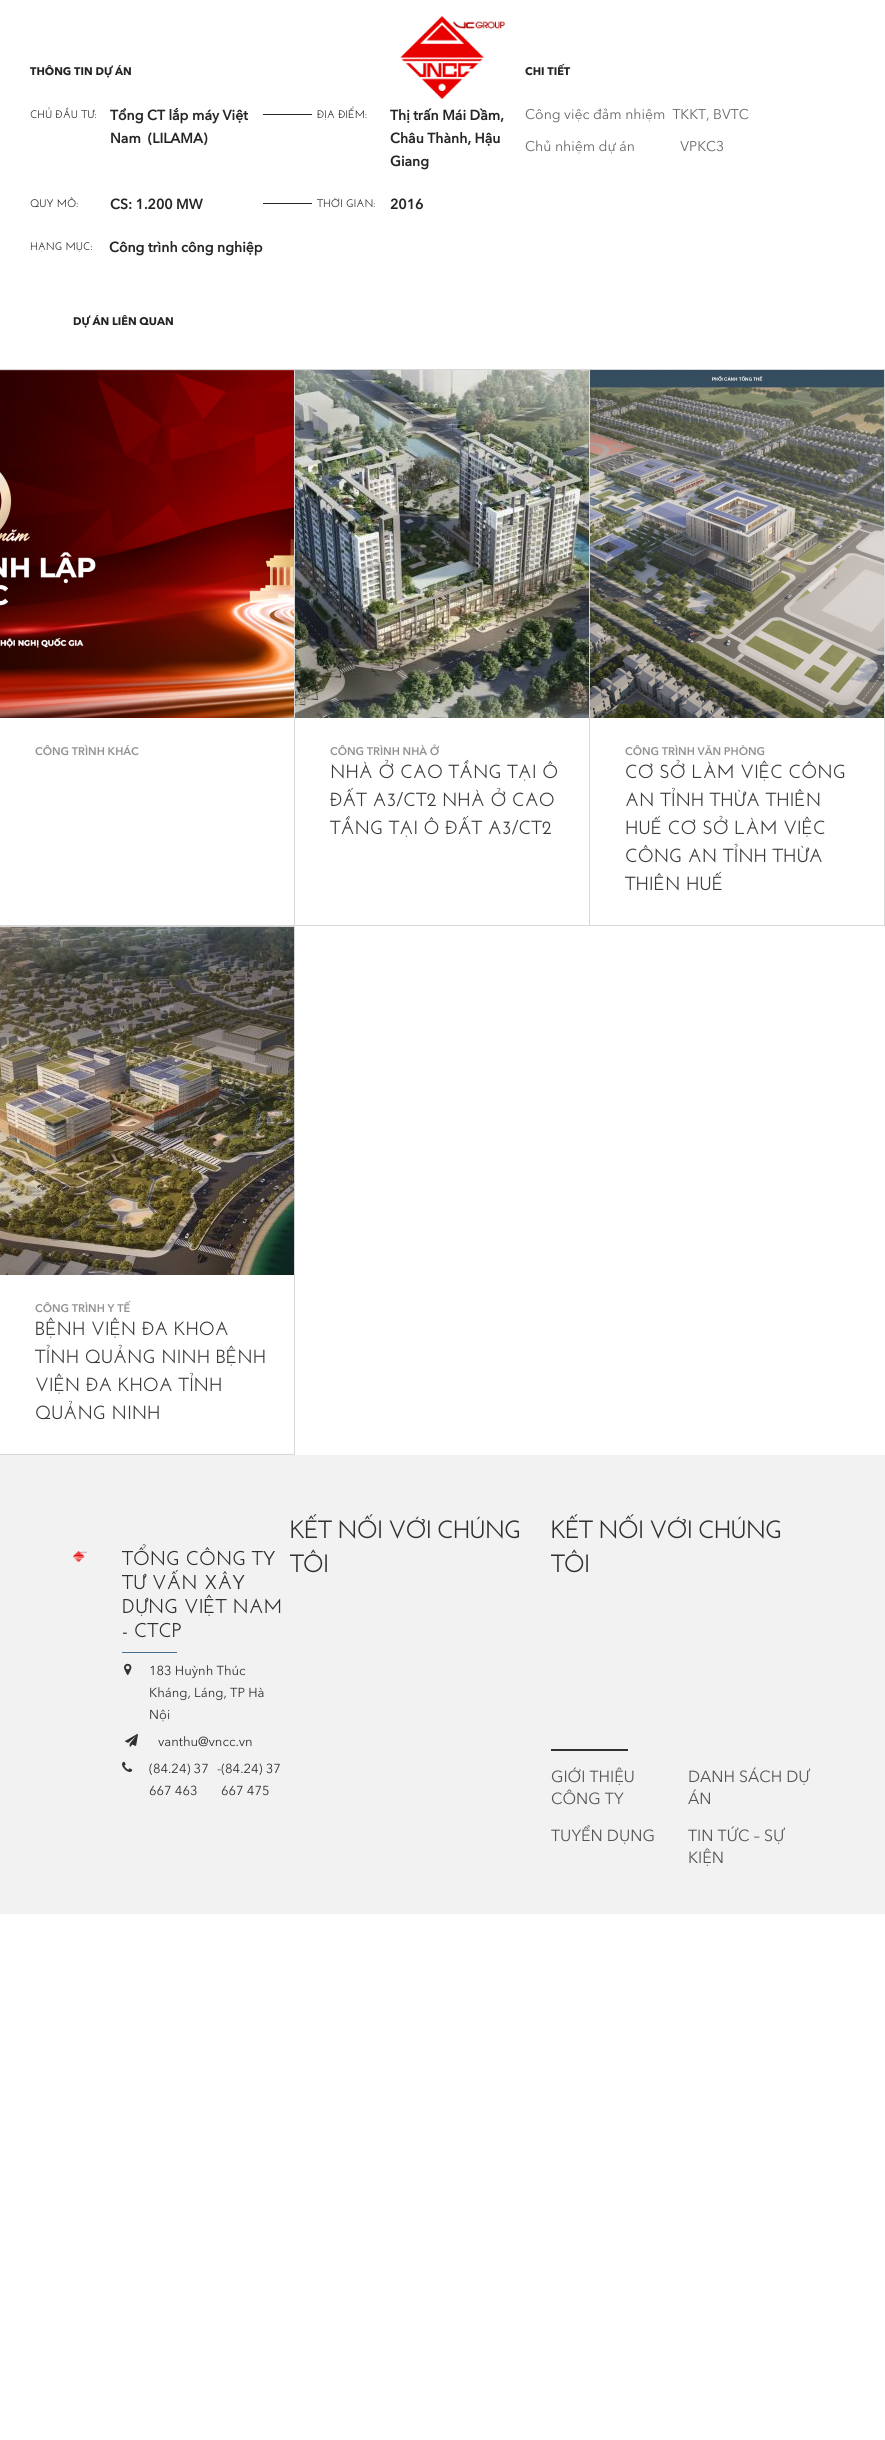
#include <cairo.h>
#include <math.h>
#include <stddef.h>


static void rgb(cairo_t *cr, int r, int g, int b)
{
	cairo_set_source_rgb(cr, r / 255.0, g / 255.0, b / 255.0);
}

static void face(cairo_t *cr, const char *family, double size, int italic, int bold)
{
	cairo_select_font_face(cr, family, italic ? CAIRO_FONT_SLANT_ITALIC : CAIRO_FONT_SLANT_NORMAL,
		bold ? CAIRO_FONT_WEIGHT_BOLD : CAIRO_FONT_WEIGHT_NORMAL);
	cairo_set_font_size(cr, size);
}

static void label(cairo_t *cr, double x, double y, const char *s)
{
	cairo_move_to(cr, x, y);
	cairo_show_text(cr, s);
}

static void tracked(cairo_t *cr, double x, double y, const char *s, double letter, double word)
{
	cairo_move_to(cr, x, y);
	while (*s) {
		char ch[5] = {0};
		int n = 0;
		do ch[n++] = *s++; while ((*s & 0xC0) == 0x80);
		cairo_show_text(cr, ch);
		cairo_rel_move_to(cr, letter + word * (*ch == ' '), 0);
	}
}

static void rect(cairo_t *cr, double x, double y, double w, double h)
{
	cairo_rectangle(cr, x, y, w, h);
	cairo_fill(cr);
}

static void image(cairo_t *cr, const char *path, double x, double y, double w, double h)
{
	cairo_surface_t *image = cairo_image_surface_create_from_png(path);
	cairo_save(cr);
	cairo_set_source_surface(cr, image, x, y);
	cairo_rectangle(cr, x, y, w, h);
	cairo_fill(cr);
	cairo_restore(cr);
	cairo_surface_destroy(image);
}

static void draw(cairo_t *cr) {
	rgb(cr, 255, 255, 255);
	cairo_paint(cr);
	image(cr, "image0.png", 400, 16, 105, 84);
	face(cr, "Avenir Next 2", 11, 0, 1);
	rgb(cr, 37, 37, 37);
	label(cr, 30, 75, "THÔNG TIN DỰ ÁN");
	face(cr, "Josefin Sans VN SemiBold", 11, 0, 0);
	label(cr, 30, 118, "CHỦ ĐẦU TƯ:");
	face(cr, "Avenir Next", 14, 0, 1);
	label(cr, 110, 120, "Tổng CT lắp máy Việt");
	label(cr, 110, 143, "Nam  (LILAMA)");
	rect(cr, 263, 114, 49, 1);
	face(cr, "Josefin Sans VN SemiBold", 11, 0, 0);
	label(cr, 317, 118, "ĐỊA ĐIỂM:");
	face(cr, "Avenir Next", 14, 0, 1);
	label(cr, 390, 120, "Thị trấn Mái Dầm,");
	label(cr, 390, 143, "Châu Thành, Hậu");
	label(cr, 390, 166, "Giang");
	face(cr, "Josefin Sans VN SemiBold", 11, 0, 0);
	label(cr, 30, 207, "QUY MÔ:");
	face(cr, "Avenir Next", 14, 0, 1);
	label(cr, 110, 209, "CS: 1.200 MW");
	rect(cr, 263, 203, 49, 1);
	face(cr, "Josefin Sans VN SemiBold", 11, 0, 0);
	label(cr, 317, 207, "THỜI GIAN:");
	face(cr, "Avenir Next", 14, 0, 1);
	label(cr, 390, 209, "2016");
	face(cr, "Josefin Sans VN SemiBold", 11, 0, 0);
	label(cr, 30, 250, "HẠNG MỤC:");
	face(cr, "Avenir Next", 14, 0, 1);
	label(cr, 109, 252, "Công trình công nghiệp");
	face(cr, "Avenir Next 2", 11, 0, 1);
	label(cr, 525, 75, "CHI TIẾT");
	face(cr, "Avenir Next", 14, 0, 0);
	rgb(cr, 103, 103, 103);
	label(cr, 525, 119, "Công việc đảm nhiệm  TKKT, BVTC");
	label(cr, 525, 151, "Chủ nhiệm dự án             VPKC3");
	face(cr, "Avenir Next 2", 11, 0, 1);
	rgb(cr, 37, 37, 37);
	label(cr, 73, 325, "DỰ ÁN LIÊN QUAN");
	rgb(cr, 216, 216, 216);
	rect(cr, 0, 369, 885, 1);
	rect(cr, 294, 369, 1, 557);
	rect(cr, 0, 925, 295, 2);
	image(cr, "image1.png", 0, 370, 294, 348);
	face(cr, "Avenir Next SemiBold", 11, 0, 0);
	rgb(cr, 146, 146, 146);
	label(cr, 35, 755, "CÔNG TRÌNH KHÁC");
	rgb(cr, 216, 216, 216);
	rect(cr, 589, 369, 1, 557);
	rect(cr, 295, 925, 295, 1);
	image(cr, "image2.png", 295, 370, 294, 348);
	rgb(cr, 146, 146, 146);
	label(cr, 330, 755, "CÔNG TRÌNH NHÀ Ở");
	face(cr, "Josefin Sans VN SemiBold", 19, 0, 0);
	rgb(cr, 59, 59, 59);
	label(cr, 330, 778, "NHÀ Ở CAO TẦNG TẠI Ô");
	label(cr, 330, 806, "ĐẤT A3/CT2 NHÀ Ở CAO");
	label(cr, 330, 834, "TẦNG TẠI Ô ĐẤT A3/CT2");
	rgb(cr, 216, 216, 216);
	rect(cr, 884, 369, 1, 557);
	rect(cr, 590, 925, 295, 1);
	image(cr, "image3.png", 590, 370, 294, 348);
	face(cr, "Avenir Next SemiBold", 11, 0, 0);
	rgb(cr, 146, 146, 146);
	label(cr, 625, 755, "CÔNG TRÌNH VĂN PHÒNG");
	face(cr, "Josefin Sans VN SemiBold", 19, 0, 0);
	rgb(cr, 59, 59, 59);
	label(cr, 625, 778, "CƠ SỞ LÀM VIỆC CÔNG");
	label(cr, 625, 806, "AN TỈNH THỪA THIÊN");
	label(cr, 625, 834, "HUẾ CƠ SỞ LÀM VIỆC");
	label(cr, 625, 862, "CÔNG AN TỈNH THỪA");
	label(cr, 625, 890, "THIÊN HUẾ");
	rgb(cr, 216, 216, 216);
	rect(cr, 294, 926, 1, 529);
	rect(cr, 0, 1454, 295, 1);
	image(cr, "image4.png", 0, 927, 294, 348);
	face(cr, "Avenir Next SemiBold", 11, 0, 0);
	rgb(cr, 146, 146, 146);
	label(cr, 35, 1312, "CÔNG TRÌNH Y TẾ");
	face(cr, "Josefin Sans VN SemiBold", 19, 0, 0);
	rgb(cr, 59, 59, 59);
	label(cr, 35, 1335, "BỆNH VIỆN ĐA KHOA");
	label(cr, 35, 1363, "TỈNH QUẢNG NINH BỆNH");
	label(cr, 35, 1391, "VIỆN ĐA KHOA TỈNH");
	label(cr, 35, 1419, "QUẢNG NINH");
	rgb(cr, 242, 242, 242);
	rect(cr, 0, 1455, 885, 459);
	image(cr, "image5.png", 73, 1551, 14, 11);
	face(cr, "Josefin Sans VN SemiBold", 20, 0, 0);
	rgb(cr, 48, 48, 48);
	label(cr, 122, 1565, "TỔNG CÔNG TY");
	label(cr, 122, 1589, "TƯ VẤN XÂY");
	label(cr, 122, 1613, "DỰNG VIỆT NAM");
	label(cr, 122, 1637, "- CTCP");
	rgb(cr, 72, 111, 140);
	rect(cr, 122, 1652, 55, 1);
	image(cr, "image6.png", 124, 1663, 8, 12);
	face(cr, "Avenir Next", 13, 0, 0);
	rgb(cr, 48, 48, 48);
	label(cr, 149, 1675, "183 Huỳnh Thúc");
	label(cr, 149, 1697, "Kháng, Láng, TP Hà");
	label(cr, 149, 1719, "Nội");
	image(cr, "image7.png", 125, 1733, 13, 14);
	label(cr, 158, 1746, "vanthu@vncc.vn");
	image(cr, "image8.png", 122, 1761, 11, 11);
	label(cr, 149, 1773, "(84.24) 37");
	label(cr, 149, 1795, "667 463");
	label(cr, 217, 1773, "-(84.24) 37");
	label(cr, 221, 1795, "667 475");
	face(cr, "Josefin Sans VN SemiBold", 25, 0, 0);
	tracked(cr, 290, 1538, "KẾT NỐI VỚI CHÚNG", -1, 0);
	tracked(cr, 290, 1572, "TÔI", -1, 0);
	tracked(cr, 551, 1538, "KẾT NỐI VỚI CHÚNG", -1, 0);
	tracked(cr, 551, 1572, "TÔI", -1, 0);
	rect(cr, 551, 1749, 77, 2);
	face(cr, "Avenir Next", 16, 0, 0);
	rgb(cr, 85, 85, 85);
	label(cr, 551, 1782, "GIỚI THIỆU");
	label(cr, 551, 1804, "CÔNG TY");
	label(cr, 688, 1782, "DANH SÁCH DỰ");
	label(cr, 688, 1804, "ÁN");
	label(cr, 551, 1841, "TUYỂN DỤNG");
	label(cr, 688, 1841, "TIN TỨC – SỰ");
	label(cr, 688, 1863, "KIỆN");
}

int main(void) {
	cairo_surface_t *surface = cairo_image_surface_create(CAIRO_FORMAT_RGB24, 885, 2440);
	cairo_t *cr = cairo_create(surface);
	cairo_font_options_t *options = cairo_font_options_create();
	cairo_font_options_set_hint_metrics(options, CAIRO_HINT_METRICS_OFF);
	cairo_font_options_set_hint_style(options, CAIRO_HINT_STYLE_NONE);
	cairo_set_font_options(cr, options);
	cairo_set_miter_limit(cr, 4);
	draw(cr);
	cairo_surface_write_to_png(surface, "render.png");
	cairo_font_options_destroy(options);
	cairo_destroy(cr);
	cairo_surface_destroy(surface);
	return 0;
}
